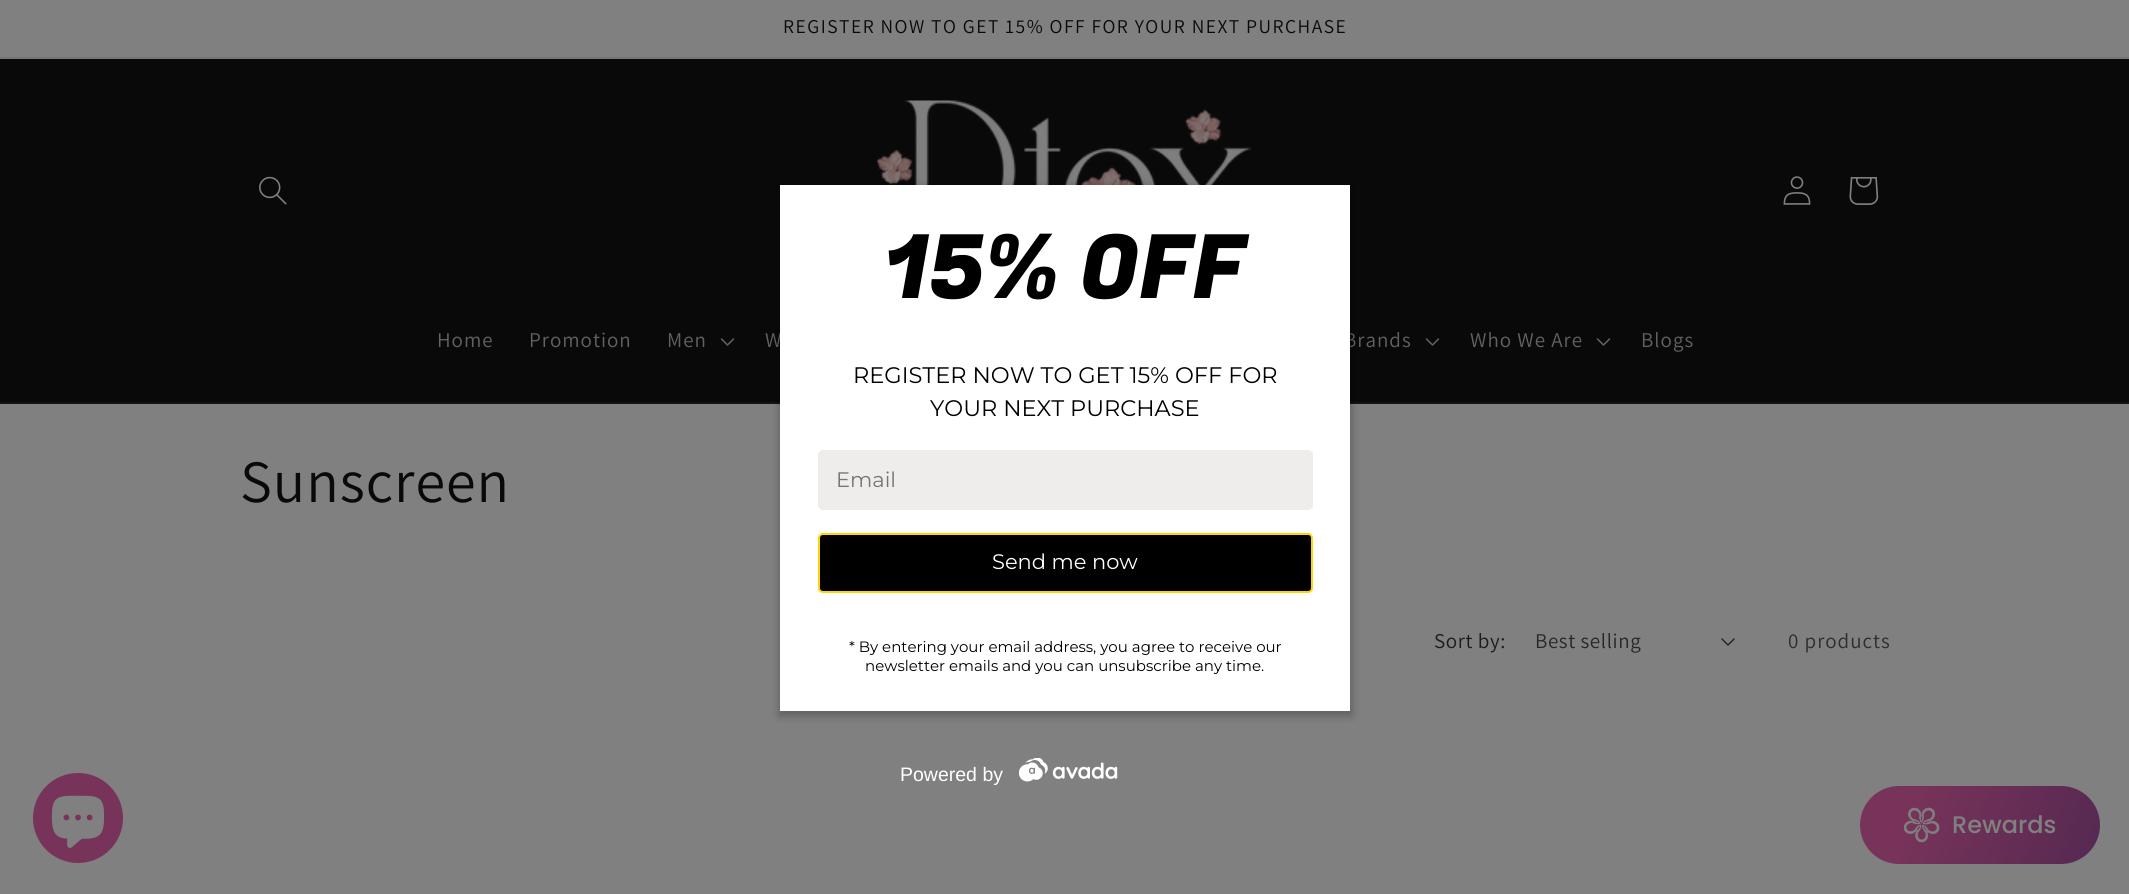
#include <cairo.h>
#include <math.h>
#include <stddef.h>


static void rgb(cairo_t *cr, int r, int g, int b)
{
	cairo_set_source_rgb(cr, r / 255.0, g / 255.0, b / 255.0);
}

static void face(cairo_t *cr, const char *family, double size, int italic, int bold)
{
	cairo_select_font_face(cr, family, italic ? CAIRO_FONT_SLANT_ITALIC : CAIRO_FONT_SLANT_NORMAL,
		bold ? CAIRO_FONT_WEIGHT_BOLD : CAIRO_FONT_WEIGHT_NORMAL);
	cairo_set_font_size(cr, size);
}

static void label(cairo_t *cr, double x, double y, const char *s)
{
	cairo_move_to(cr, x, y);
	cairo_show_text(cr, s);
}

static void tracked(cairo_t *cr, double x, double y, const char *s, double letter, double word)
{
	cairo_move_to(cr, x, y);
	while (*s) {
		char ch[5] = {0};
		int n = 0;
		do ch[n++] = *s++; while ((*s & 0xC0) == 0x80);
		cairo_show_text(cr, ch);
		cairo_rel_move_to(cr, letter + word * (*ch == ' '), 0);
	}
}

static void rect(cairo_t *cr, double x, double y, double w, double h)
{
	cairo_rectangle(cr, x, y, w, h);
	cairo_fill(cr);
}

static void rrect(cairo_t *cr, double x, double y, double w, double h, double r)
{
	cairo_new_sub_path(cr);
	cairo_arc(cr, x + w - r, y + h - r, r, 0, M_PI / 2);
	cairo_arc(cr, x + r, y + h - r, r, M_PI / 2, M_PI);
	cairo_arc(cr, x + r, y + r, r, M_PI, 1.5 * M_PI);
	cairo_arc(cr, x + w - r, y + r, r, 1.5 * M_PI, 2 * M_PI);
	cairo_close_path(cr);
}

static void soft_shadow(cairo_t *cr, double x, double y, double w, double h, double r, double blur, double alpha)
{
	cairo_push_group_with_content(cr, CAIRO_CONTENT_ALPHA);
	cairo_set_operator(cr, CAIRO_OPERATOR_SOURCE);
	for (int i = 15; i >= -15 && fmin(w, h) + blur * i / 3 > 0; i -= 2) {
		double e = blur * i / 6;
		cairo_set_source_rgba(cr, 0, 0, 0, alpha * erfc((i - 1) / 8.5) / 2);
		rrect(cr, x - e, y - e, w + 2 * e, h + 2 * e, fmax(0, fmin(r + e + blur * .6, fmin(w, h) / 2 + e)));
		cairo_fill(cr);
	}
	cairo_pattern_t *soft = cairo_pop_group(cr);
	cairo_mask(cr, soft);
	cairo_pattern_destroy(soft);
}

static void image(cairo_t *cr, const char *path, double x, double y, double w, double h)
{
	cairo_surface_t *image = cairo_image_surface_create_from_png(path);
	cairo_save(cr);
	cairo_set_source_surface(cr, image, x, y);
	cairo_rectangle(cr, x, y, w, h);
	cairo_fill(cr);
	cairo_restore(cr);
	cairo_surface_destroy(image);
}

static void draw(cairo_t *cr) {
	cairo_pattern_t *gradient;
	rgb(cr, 128, 128, 128);
	cairo_paint(cr);
	rgb(cr, 118, 118, 118);
	rect(cr, 0, 57, 2129, 2);
	face(cr, "Assistant", 19.5, 0, 0);
	rgb(cr, 9, 9, 9);
	tracked(cr, 783, 33, "REGISTER NOW TO GET 15% OFF FOR YOUR NEXT PURCHASE", 1.5, 0);
	rect(cr, 0, 59, 2129, 343);
	rgb(cr, 19, 19, 19);
	rect(cr, 0, 402, 2129, 2);
	image(cr, "image0.png", 877, 100, 375, 85);
	image(cr, "image1.png", 259, 176, 28, 29);
	image(cr, "image2.png", 1783, 176, 28, 29);
	image(cr, "image3.png", 1849, 177, 30, 28);
	face(cr, "Assistant", 21, 0, 0);
	rgb(cr, 98, 98, 98);
	tracked(cr, 437, 347, "Home", 1, 0);
	tracked(cr, 529, 347, "Promotion", 1, 0);
	tracked(cr, 667, 347, "Men", 1, 0);
	image(cr, "image4.png", 720, 338, 15, 8);
	tracked(cr, 765, 347, "W", 1, 0);
	tracked(cr, 1344, 347, "Brands", 1, 0);
	image(cr, "image4.png", 1425, 338, 15, 8);
	tracked(cr, 1470, 347, "Who We Are", 1, 0);
	image(cr, "image4.png", 1596, 338, 15, 8);
	tracked(cr, 1641, 347, "Blogs", 1, 0);
	face(cr, "Assistant", 60, 0, 0);
	rgb(cr, 9, 9, 9);
	tracked(cr, 240, 502, "Sunscreen", 1, 0);
	face(cr, "Assistant", 21, 0, 0);
	rgb(cr, 27, 27, 27);
	tracked(cr, 1434, 648, "Sort by:", 0.6, 0);
	rgb(cr, 39, 39, 39);
	tracked(cr, 1535, 648, "Best selling", 0.6, 0);
	image(cr, "image5.png", 1721, 638, 14, 8);
	rgb(cr, 45, 45, 45);
	tracked(cr, 1788, 648, "0 products", 1, 0);
	rgb(cr, 119, 51, 89);
	cairo_new_path(cr);
	cairo_arc(cr, 78, 818, 45, 0, 2 * M_PI);
	cairo_fill(cr);
	image(cr, "image6.png", 51, 795, 54, 53);
	gradient = cairo_pattern_create_linear(1861, 783, 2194, 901);
	cairo_pattern_add_color_stop_rgba(gradient, 0.17, 0.467, 0.2, 0.349, 1);
	cairo_pattern_add_color_stop_rgba(gradient, 1, 0.263, 0.137, 0.306, 1);
	cairo_set_source(cr, gradient);
	cairo_pattern_destroy(gradient);
	rrect(cr, 1860, 786, 240, 78, 39);
	cairo_fill(cr);
	image(cr, "image7.png", 1904, 807, 36, 36);
	face(cr, "Poppins Medium", 24, 0, 0);
	rgb(cr, 128, 128, 128);
	label(cr, 1952, 833, "Rewards");
	rgb(cr, 0, 0, 0);
	soft_shadow(cr, 779, 186, 573, 530, 0, 4, 0.25);
	rgb(cr, 255, 255, 255);
	rect(cr, 780, 185, 570, 526);
	face(cr, "Fugaz One", 88.5, 0, 0);
	rgb(cr, 0, 0, 0);
	label(cr, 884, 298, "15% OFF");
	face(cr, "Montserrat Thin", 22.5, 0, 0);
	label(cr, 853, 383, "REGISTER NOW TO GET 15% OFF FOR");
	label(cr, 930, 416, "YOUR NEXT PURCHASE");
	rgb(cr, 239, 236, 236);
	rrect(cr, 818, 450, 495, 60, 5);
	cairo_fill(cr);
	face(cr, "Montserrat Thin", 21, 0, 0);
	rgb(cr, 117, 117, 117);
	label(cr, 836, 487, "Email");
	rgb(cr, 0, 0, 0);
	rrect(cr, 819, 534, 493, 58, 4);
	cairo_fill_preserve(cr);
	rgb(cr, 255, 214, 0);
	cairo_stroke(cr);
	rgb(cr, 255, 255, 255);
	label(cr, 992, 569, "Send me now");
	face(cr, "Montserrat Thin", 15, 0, 0);
	rgb(cr, 0, 0, 0);
	label(cr, 849, 652, "* By entering your email address, you agree to receive our");
	label(cr, 865, 671, "newsletter emails and you can unsubscribe any time.");
	face(cr, "Liberation Sans", 19.5, 0, 0);
	rgb(cr, 255, 255, 255);
	label(cr, 900, 781, "Powered by");
	image(cr, "image8.png", 1019, 758, 99, 24);
}

int main(void) {
	cairo_surface_t *surface = cairo_image_surface_create(CAIRO_FORMAT_RGB24, 2129, 894);
	cairo_t *cr = cairo_create(surface);
	cairo_font_options_t *options = cairo_font_options_create();
	cairo_font_options_set_hint_metrics(options, CAIRO_HINT_METRICS_OFF);
	cairo_font_options_set_hint_style(options, CAIRO_HINT_STYLE_NONE);
	cairo_set_font_options(cr, options);
	cairo_set_miter_limit(cr, 4);
	draw(cr);
	cairo_surface_write_to_png(surface, "render.png");
	cairo_font_options_destroy(options);
	cairo_destroy(cr);
	cairo_surface_destroy(surface);
	return 0;
}
